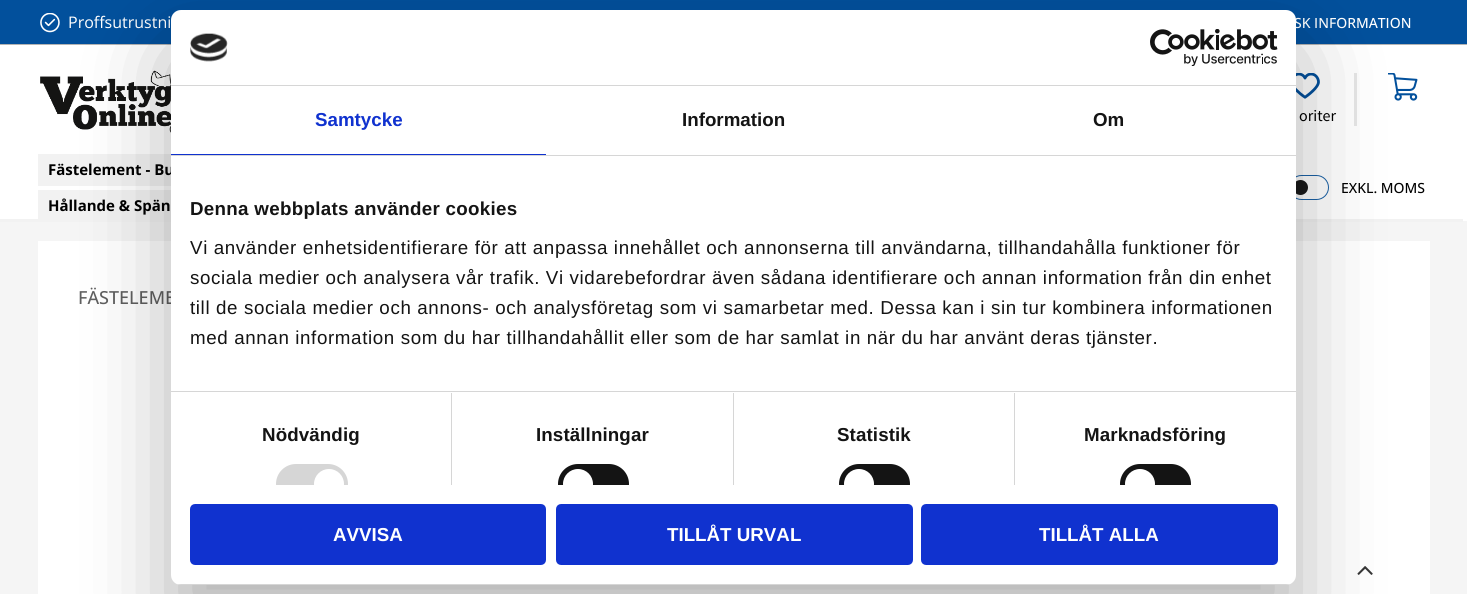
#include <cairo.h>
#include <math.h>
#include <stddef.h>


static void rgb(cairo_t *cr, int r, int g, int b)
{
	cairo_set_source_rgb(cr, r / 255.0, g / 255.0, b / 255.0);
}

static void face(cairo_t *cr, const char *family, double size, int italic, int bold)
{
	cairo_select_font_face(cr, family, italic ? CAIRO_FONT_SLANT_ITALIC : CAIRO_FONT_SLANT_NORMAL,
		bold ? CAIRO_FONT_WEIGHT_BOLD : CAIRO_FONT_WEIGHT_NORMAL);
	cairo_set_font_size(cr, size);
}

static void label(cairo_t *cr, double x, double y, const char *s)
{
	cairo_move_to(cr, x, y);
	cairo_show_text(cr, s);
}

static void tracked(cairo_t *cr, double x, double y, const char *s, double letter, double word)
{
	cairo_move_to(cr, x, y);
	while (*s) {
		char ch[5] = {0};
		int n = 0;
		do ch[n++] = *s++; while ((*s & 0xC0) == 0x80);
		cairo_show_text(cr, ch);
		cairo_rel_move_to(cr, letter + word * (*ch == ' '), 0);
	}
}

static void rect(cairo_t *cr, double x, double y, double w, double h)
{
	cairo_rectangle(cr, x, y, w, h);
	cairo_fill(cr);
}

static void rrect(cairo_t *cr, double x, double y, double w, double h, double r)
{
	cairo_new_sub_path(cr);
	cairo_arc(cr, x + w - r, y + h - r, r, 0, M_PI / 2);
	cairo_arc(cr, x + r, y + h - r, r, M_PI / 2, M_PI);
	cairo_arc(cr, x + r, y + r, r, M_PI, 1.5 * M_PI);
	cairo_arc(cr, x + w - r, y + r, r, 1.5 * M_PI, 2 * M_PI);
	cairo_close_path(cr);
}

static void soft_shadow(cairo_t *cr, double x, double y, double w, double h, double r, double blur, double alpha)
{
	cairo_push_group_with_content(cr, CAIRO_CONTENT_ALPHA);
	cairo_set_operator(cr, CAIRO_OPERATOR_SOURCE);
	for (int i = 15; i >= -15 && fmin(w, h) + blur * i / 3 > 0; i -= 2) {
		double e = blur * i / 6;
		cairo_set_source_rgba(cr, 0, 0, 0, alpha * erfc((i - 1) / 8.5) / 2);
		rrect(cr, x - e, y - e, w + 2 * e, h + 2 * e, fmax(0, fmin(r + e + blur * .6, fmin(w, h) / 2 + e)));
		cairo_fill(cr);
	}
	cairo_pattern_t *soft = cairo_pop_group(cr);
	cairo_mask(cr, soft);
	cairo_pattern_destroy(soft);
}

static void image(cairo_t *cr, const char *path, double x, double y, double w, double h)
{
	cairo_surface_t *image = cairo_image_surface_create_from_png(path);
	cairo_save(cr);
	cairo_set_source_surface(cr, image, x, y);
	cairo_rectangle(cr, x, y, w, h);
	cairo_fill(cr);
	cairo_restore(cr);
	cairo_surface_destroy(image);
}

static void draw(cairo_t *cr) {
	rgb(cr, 245, 245, 245);
	cairo_paint(cr);
	rgb(cr, 255, 255, 255);
	rect(cr, 0, 45, 1467, 176);
	rgb(cr, 2, 80, 156);
	rect(cr, 0, 0, 1467, 44);
	rgb(cr, 179, 179, 179);
	rect(cr, 0, 44, 1467, 1);
	image(cr, "image0.png", 40, 13, 20, 20);
	face(cr, "Open Sans", 16, 0, 0);
	rgb(cr, 255, 255, 255);
	label(cr, 68, 28, "Proffsutrustni");
	face(cr, "Open Sans Medium", 14, 0, 0);
	label(cr, 1294, 28, "SK INFORMATION");
	image(cr, "image1.png", 40, 70, 131, 63);
	image(cr, "image2.png", 1296, 73, 24, 26);
	face(cr, "Source Sans Pro", 16, 0, 0);
	rgb(cr, 0, 0, 0);
	label(cr, 1299, 121, "oriter");
	rgb(cr, 230, 230, 230);
	rect(cr, 1354, 73, 3, 53);
	image(cr, "image3.png", 1388, 73, 30, 28);
	rgb(cr, 242, 242, 242);
	rect(cr, 38, 154, 133, 32);
	face(cr, "Open Sans", 15, 0, 1);
	rgb(cr, 0, 0, 0);
	label(cr, 48, 175, "Fästelement - Bu");
	rgb(cr, 242, 242, 242);
	rect(cr, 38, 190, 133, 29);
	rgb(cr, 0, 0, 0);
	label(cr, 48, 211, "Hållande & Spän");
	rrect(cr, 1289.5, 175.5, 39, 24, 12);
	rgb(cr, 27, 98, 166);
	cairo_set_line_width(cr, 1);
	cairo_stroke(cr);
	rgb(cr, 26, 26, 26);
	cairo_arc(cr, 1300.5, 187.5, 7.5, 0, 2 * M_PI);
	cairo_fill(cr);
	face(cr, "Open Sans Medium", 14, 0, 0);
	rgb(cr, 0, 0, 0);
	label(cr, 1341, 193, "EXKL. MOMS");
	rgb(cr, 242, 242, 242);
	rect(cr, 0, 219, 1463, 3);
	rgb(cr, 255, 255, 255);
	rect(cr, 38, 241, 1392, 353);
	face(cr, "Open Sans Medium", 18, 0, 0);
	rgb(cr, 95, 95, 95);
	label(cr, 78, 304, "FÄSTELEME");
	image(cr, "image4.png", 1357, 566, 16, 9);
	rgb(cr, 0, 0, 0);
	soft_shadow(cr, 171, 50, 1125, 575, 10, 42.5, 0.3);
	rgb(cr, 255, 255, 255);
	rrect(cr, 171, 10, 1125, 575, 10);
	cairo_fill(cr);
	rgb(cr, 214, 214, 214);
	rect(cr, 171, 85, 1125, 1);
	image(cr, "image5.png", 190, 33, 38, 29);
	image(cr, "image6.png", 1150, 29, 128, 37);
	rect(cr, 171, 155, 1125, 1);
	rgb(cr, 16, 50, 207);
	rect(cr, 171, 154, 375, 1);
	face(cr, "Liberation Sans", 18.75, 0, 1);
	label(cr, 315, 126, "Samtycke");
	rgb(cr, 20, 20, 20);
	label(cr, 682, 126, "Information");
	label(cr, 1093, 126, "Om");
	rgb(cr, 214, 214, 214);
	rect(cr, 171, 391, 1125, 1);
	rgb(cr, 20, 20, 20);
	tracked(cr, 190, 215, "Denna webbplats använder cookies", 0.3, 0);
	face(cr, "Liberation Sans", 18.75, 0, 0);
	tracked(cr, 190, 254, "Vi använder enhetsidentifierare för att anpassa innehållet och annonserna till användarna, tillhandahålla funktioner för", 0.62, 0);
	tracked(cr, 190, 284, "sociala medier och analysera vår trafik. Vi vidarebefordrar även sådana identifierare och annan information från din enhet", 0.62, 0);
	tracked(cr, 190, 314, "till de sociala medier och annons- och analysföretag som vi samarbetar med. Dessa kan i sin tur kombinera informationen", 0.62, 0);
	tracked(cr, 190, 344, "med annan information som du har tillhandahållit eller som de har samlat in när du har använt deras tjänster.", 0.62, 0);
	rgb(cr, 214, 214, 214);
	rect(cr, 451, 393, 1, 92);
	face(cr, "Liberation Sans", 18.75, 0, 1);
	rgb(cr, 20, 20, 20);
	tracked(cr, 262, 441, "Nödvändig", 0.1, 0);
	cairo_save(cr);
	cairo_rectangle(cr, 171, 156, 1125, 329);
	cairo_clip(cr);
	rgb(cr, 214, 214, 214);
	rrect(cr, 276, 464, 72, 40, 20);
	cairo_fill(cr);
	rgb(cr, 255, 255, 255);
	cairo_arc(cr, 329, 484, 15, 0, 2 * M_PI);
	cairo_fill(cr);
	cairo_restore(cr);
	rgb(cr, 214, 214, 214);
	rect(cr, 733, 393, 1, 92);
	rgb(cr, 20, 20, 20);
	tracked(cr, 536, 441, "Inställningar", 0.1, 0);
	cairo_save(cr);
	cairo_rectangle(cr, 171, 156, 1125, 329);
	cairo_clip(cr);
	rrect(cr, 558, 464, 71, 40, 20);
	cairo_fill(cr);
	rgb(cr, 255, 255, 255);
	cairo_arc(cr, 578, 484, 15, 0, 2 * M_PI);
	cairo_fill(cr);
	cairo_restore(cr);
	rgb(cr, 214, 214, 214);
	rect(cr, 1014, 393, 1, 92);
	rgb(cr, 20, 20, 20);
	tracked(cr, 837, 441, "Statistik", 0.1, 0);
	cairo_save(cr);
	cairo_rectangle(cr, 171, 156, 1125, 329);
	cairo_clip(cr);
	rrect(cr, 839, 464, 71, 40, 20);
	cairo_fill(cr);
	rgb(cr, 255, 255, 255);
	cairo_arc(cr, 859, 484, 15, 0, 2 * M_PI);
	cairo_fill(cr);
	cairo_restore(cr);
	tracked(cr, 1084, 441, "Marknadsföring", 0.1, 0);
	cairo_save(cr);
	cairo_rectangle(cr, 171, 156, 1125, 329);
	cairo_clip(cr);
	rrect(cr, 1120, 464, 71, 40, 20);
	cairo_fill(cr);
	rgb(cr, 255, 255, 255);
	cairo_arc(cr, 1140, 484, 15, 0, 2 * M_PI);
	cairo_fill(cr);
	cairo_restore(cr);
	cairo_save(cr);
	rrect(cr, 171, 10, 1125, 575, 10);
	cairo_clip(cr);
	rgb(cr, 214, 214, 214);
	rect(cr, 171, 584, 1125, 1);
	cairo_restore(cr);
	rgb(cr, 16, 50, 207);
	rrect(cr, 191.5, 505.5, 353, 58, 3.5);
	cairo_fill_preserve(cr);
	cairo_set_line_width(cr, 3);
	cairo_stroke(cr);
	rgb(cr, 255, 255, 255);
	label(cr, 333, 541, "AVVISA");
	rgb(cr, 16, 50, 207);
	rrect(cr, 557.5, 505.5, 354, 58, 3.5);
	cairo_fill_preserve(cr);
	cairo_stroke(cr);
	rgb(cr, 255, 255, 255);
	label(cr, 667, 541, "TILLÅT URVAL");
	rgb(cr, 16, 50, 207);
	rrect(cr, 922.5, 505.5, 354, 58, 3.5);
	cairo_fill_preserve(cr);
	cairo_stroke(cr);
	rgb(cr, 255, 255, 255);
	label(cr, 1039, 541, "TILLÅT ALLA");
}

int main(void) {
	cairo_surface_t *surface = cairo_image_surface_create(CAIRO_FORMAT_RGB24, 1467, 594);
	cairo_t *cr = cairo_create(surface);
	cairo_font_options_t *options = cairo_font_options_create();
	cairo_font_options_set_hint_metrics(options, CAIRO_HINT_METRICS_OFF);
	cairo_font_options_set_hint_style(options, CAIRO_HINT_STYLE_NONE);
	cairo_set_font_options(cr, options);
	cairo_set_miter_limit(cr, 4);
	draw(cr);
	cairo_surface_write_to_png(surface, "render.png");
	cairo_font_options_destroy(options);
	cairo_destroy(cr);
	cairo_surface_destroy(surface);
	return 0;
}
